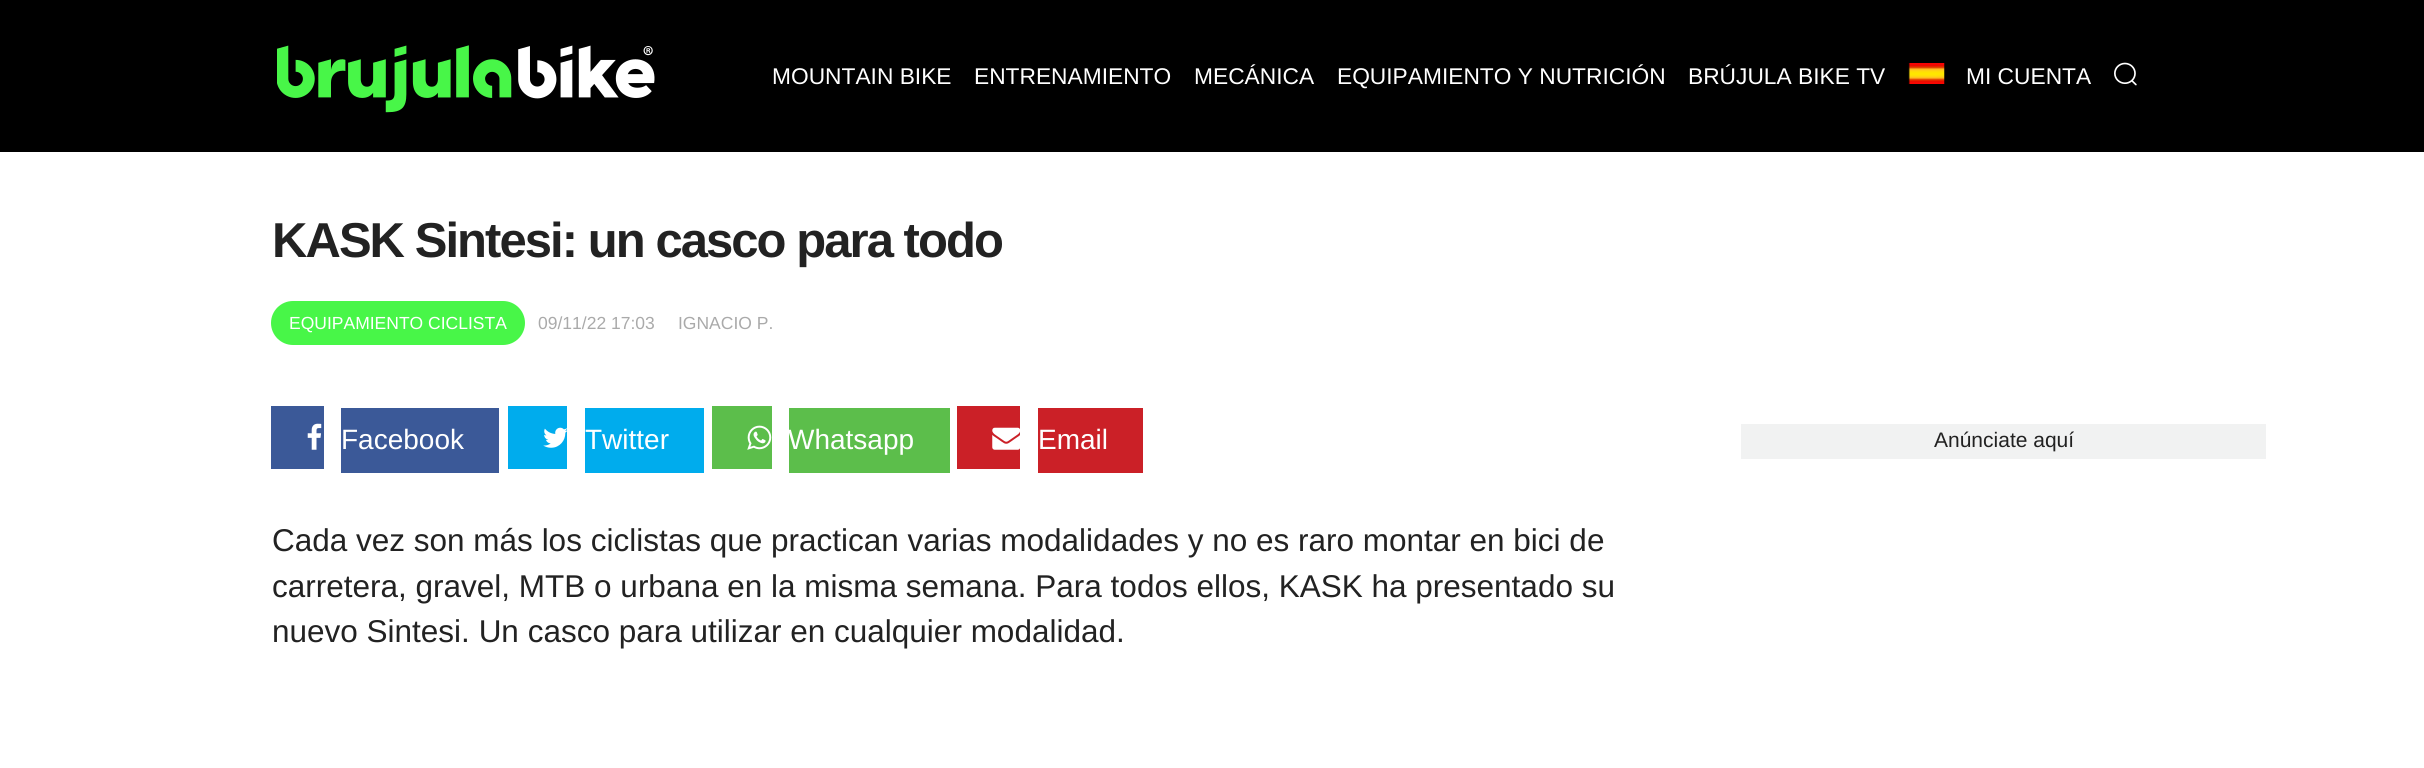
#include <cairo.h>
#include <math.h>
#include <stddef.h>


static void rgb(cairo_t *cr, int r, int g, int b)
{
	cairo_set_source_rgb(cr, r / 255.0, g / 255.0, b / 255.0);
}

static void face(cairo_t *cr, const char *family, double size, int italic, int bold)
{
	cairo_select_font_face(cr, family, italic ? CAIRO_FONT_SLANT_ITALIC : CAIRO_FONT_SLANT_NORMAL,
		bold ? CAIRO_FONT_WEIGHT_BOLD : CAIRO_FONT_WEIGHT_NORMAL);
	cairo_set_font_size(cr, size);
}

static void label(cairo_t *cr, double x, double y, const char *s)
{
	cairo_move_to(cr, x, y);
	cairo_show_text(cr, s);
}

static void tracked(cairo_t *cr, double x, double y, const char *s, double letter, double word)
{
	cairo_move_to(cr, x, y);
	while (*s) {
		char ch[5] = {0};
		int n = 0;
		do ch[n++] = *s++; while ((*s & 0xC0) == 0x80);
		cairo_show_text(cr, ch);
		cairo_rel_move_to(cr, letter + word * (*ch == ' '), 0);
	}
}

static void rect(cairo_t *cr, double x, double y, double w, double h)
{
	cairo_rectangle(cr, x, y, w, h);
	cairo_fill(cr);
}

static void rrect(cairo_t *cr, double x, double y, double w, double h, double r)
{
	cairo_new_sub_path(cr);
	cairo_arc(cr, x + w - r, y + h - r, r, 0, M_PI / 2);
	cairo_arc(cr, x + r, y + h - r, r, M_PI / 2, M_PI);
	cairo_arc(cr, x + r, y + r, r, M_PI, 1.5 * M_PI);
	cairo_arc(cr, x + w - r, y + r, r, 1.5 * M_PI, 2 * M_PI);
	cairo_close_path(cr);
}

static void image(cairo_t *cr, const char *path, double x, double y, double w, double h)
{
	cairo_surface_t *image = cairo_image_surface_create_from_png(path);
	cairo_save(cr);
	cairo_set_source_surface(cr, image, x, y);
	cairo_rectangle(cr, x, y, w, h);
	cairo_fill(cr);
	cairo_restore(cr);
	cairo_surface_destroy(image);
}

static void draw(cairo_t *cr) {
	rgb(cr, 255, 255, 255);
	cairo_paint(cr);
	rgb(cr, 0, 0, 0);
	rect(cr, 0, 0, 2424, 152);
	image(cr, "image0.png", 277, 45, 378, 68);
	face(cr, "Liberation Sans", 22.75, 0, 0);
	rgb(cr, 255, 255, 255);
	label(cr, 772, 84, "MOUNTAIN BIKE");
	label(cr, 974, 84, "ENTRENAMIENTO");
	label(cr, 1194, 84, "MECÁNICA");
	label(cr, 1337, 84, "EQUIPAMIENTO Y NUTRICIÓN");
	label(cr, 1688, 84, "BRÚJULA BIKE TV");
	image(cr, "image1.png", 1908, 63, 37, 21);
	label(cr, 1966, 84, "MI CUENTA");
	image(cr, "image2.png", 2114, 62, 23, 24);
	face(cr, "Liberation Sans", 49, 0, 1);
	rgb(cr, 34, 34, 34);
	tracked(cr, 272, 257, "KASK Sintesi: un casco para todo", -1.95, 0);
	rgb(cr, 72, 246, 72);
	rrect(cr, 271, 301, 254, 44, 22);
	cairo_fill(cr);
	face(cr, "Liberation Sans", 17.5, 0, 0);
	rgb(cr, 255, 255, 255);
	label(cr, 289, 329, "EQUIPAMIENTO CICLISTA");
	rgb(cr, 170, 170, 170);
	label(cr, 538, 329, "09/11/22 17:03");
	label(cr, 678, 329, "IGNACIO P.");
	rgb(cr, 59, 89, 152);
	rect(cr, 271, 406, 53, 63);
	image(cr, "image3.png", 307, 423, 15, 27);
	rect(cr, 341, 408, 158, 65);
	face(cr, "Liberation Sans", 28, 0, 0);
	rgb(cr, 255, 255, 255);
	label(cr, 341, 449, "Facebook");
	rgb(cr, 0, 172, 237);
	rect(cr, 508, 406, 59, 63);
	image(cr, "image4.png", 543, 427, 24, 21);
	rect(cr, 585, 408, 119, 65);
	rgb(cr, 255, 255, 255);
	label(cr, 585, 449, "Twitter");
	rgb(cr, 92, 190, 75);
	rect(cr, 712, 406, 60, 63);
	image(cr, "image5.png", 747, 425, 25, 25);
	rect(cr, 789, 408, 161, 65);
	rgb(cr, 255, 255, 255);
	label(cr, 788, 449, "Whatsapp");
	rgb(cr, 203, 32, 39);
	rect(cr, 957, 406, 63, 63);
	image(cr, "image6.png", 992, 427, 28, 23);
	rect(cr, 1038, 408, 105, 65);
	rgb(cr, 255, 255, 255);
	label(cr, 1038, 449, "Email");
	face(cr, "Liberation Sans", 31.5, 0, 0);
	rgb(cr, 34, 34, 34);
	label(cr, 272, 551, "Cada vez son más los ciclistas que practican varias modalidades y no es raro montar en bici de");
	label(cr, 272, 597, "carretera, gravel, MTB o urbana en la misma semana. Para todos ellos, KASK ha presentado su");
	label(cr, 272, 642, "nuevo Sintesi. Un casco para utilizar en cualquier modalidad.");
	rgb(cr, 241, 242, 242);
	rect(cr, 1741, 424, 525, 35);
	face(cr, "Liberation Sans", 21, 0, 0);
	rgb(cr, 34, 34, 34);
	label(cr, 1934, 447, "Anúnciate aquí");
}

int main(void) {
	cairo_surface_t *surface = cairo_image_surface_create(CAIRO_FORMAT_RGB24, 2424, 768);
	cairo_t *cr = cairo_create(surface);
	cairo_font_options_t *options = cairo_font_options_create();
	cairo_font_options_set_hint_metrics(options, CAIRO_HINT_METRICS_OFF);
	cairo_font_options_set_hint_style(options, CAIRO_HINT_STYLE_NONE);
	cairo_set_font_options(cr, options);
	cairo_set_miter_limit(cr, 4);
	draw(cr);
	cairo_surface_write_to_png(surface, "render.png");
	cairo_font_options_destroy(options);
	cairo_destroy(cr);
	cairo_surface_destroy(surface);
	return 0;
}
